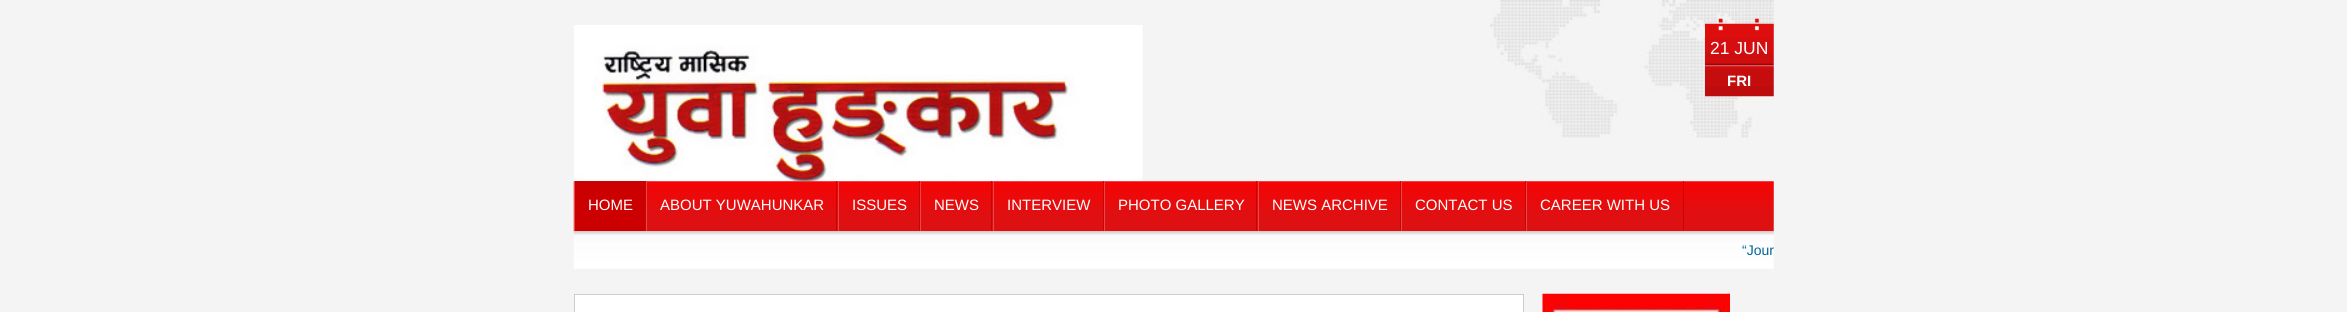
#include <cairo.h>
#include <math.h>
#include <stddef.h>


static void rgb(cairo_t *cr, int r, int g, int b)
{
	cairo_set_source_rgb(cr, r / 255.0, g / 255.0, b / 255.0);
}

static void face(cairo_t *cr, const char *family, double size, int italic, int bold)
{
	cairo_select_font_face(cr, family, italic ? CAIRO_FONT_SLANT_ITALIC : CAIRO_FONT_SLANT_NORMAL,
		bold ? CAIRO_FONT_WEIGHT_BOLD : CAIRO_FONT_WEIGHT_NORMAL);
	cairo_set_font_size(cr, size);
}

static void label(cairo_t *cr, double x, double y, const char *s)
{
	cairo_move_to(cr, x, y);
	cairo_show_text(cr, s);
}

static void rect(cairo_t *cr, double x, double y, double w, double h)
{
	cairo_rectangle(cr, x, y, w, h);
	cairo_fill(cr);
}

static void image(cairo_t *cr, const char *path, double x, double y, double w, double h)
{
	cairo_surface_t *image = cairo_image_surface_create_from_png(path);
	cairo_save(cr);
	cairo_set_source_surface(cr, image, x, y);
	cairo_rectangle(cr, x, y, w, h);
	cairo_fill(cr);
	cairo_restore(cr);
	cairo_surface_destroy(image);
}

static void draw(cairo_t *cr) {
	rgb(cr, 244, 244, 244);
	cairo_paint(cr);
	image(cr, "image0.png", 574, 25, 569, 157);
	image(cr, "image1.png", 1490, 0, 284, 138);
	image(cr, "image2.png", 1705, 18, 69, 79);
	face(cr, "Liberation Sans", 17.5, 0, 0);
	rgb(cr, 255, 255, 255);
	label(cr, 1710, 54, "21 JUN");
	face(cr, "Liberation Sans", 15, 0, 1);
	label(cr, 1727, 86, "FRI");
	image(cr, "image3.png", 573, 181, 1201, 51);
	rgb(cr, 199, 5, 5);
	rect(cr, 645, 181, 1, 50);
	rgb(cr, 230, 73, 74);
	rect(cr, 574, 181, 1, 50);
	rgb(cr, 204, 0, 0);
	rect(cr, 575, 181, 70, 50);
	face(cr, "Liberation Sans", 15, 0, 0);
	rgb(cr, 255, 255, 255);
	label(cr, 588, 210, "HOME");
	rgb(cr, 199, 5, 5);
	rect(cr, 836, 181, 1, 50);
	rgb(cr, 230, 73, 74);
	rect(cr, 646, 181, 1, 50);
	rgb(cr, 255, 255, 255);
	label(cr, 660, 210, "ABOUT YUWAHUNKAR");
	rgb(cr, 199, 5, 5);
	rect(cr, 919, 181, 1, 50);
	rgb(cr, 230, 73, 74);
	rect(cr, 838, 181, 1, 50);
	rgb(cr, 255, 255, 255);
	label(cr, 852, 210, "ISSUES");
	rgb(cr, 199, 5, 5);
	rect(cr, 991, 181, 1, 50);
	rgb(cr, 230, 73, 74);
	rect(cr, 920, 181, 1, 50);
	rgb(cr, 255, 255, 255);
	label(cr, 934, 210, "NEWS");
	rgb(cr, 199, 5, 5);
	rect(cr, 1103, 181, 1, 50);
	rgb(cr, 230, 73, 74);
	rect(cr, 993, 181, 1, 50);
	rgb(cr, 255, 255, 255);
	label(cr, 1007, 210, "INTERVIEW");
	rgb(cr, 199, 5, 5);
	rect(cr, 1256, 181, 1, 50);
	rgb(cr, 230, 73, 74);
	rect(cr, 1104, 181, 1, 50);
	rgb(cr, 255, 255, 255);
	label(cr, 1118, 210, "PHOTO GALLERY");
	rgb(cr, 199, 5, 5);
	rect(cr, 1400, 181, 1, 50);
	rgb(cr, 230, 73, 74);
	rect(cr, 1258, 181, 1, 50);
	rgb(cr, 255, 255, 255);
	label(cr, 1272, 210, "NEWS ARCHIVE");
	rgb(cr, 199, 5, 5);
	rect(cr, 1525, 181, 1, 50);
	rgb(cr, 230, 73, 74);
	rect(cr, 1401, 181, 1, 50);
	rgb(cr, 255, 255, 255);
	label(cr, 1415, 210, "CONTACT US");
	rgb(cr, 199, 5, 5);
	rect(cr, 1683, 181, 1, 50);
	rgb(cr, 230, 73, 74);
	rect(cr, 1526, 181, 1, 50);
	rgb(cr, 255, 255, 255);
	label(cr, 1540, 210, "CAREER WITH US");
	image(cr, "image4.png", 573, 231, 1201, 38);
	face(cr, "Liberation Sans", 14, 0, 0);
	rgb(cr, 0, 102, 153);
	label(cr, 1742, 255, "“Jour");
	rgb(cr, 255, 255, 255);
	cairo_rectangle(cr, 574.5, 294.5, 949, 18);
	cairo_fill_preserve(cr);
	rgb(cr, 204, 204, 204);
	cairo_set_line_width(cr, 1);
	cairo_stroke(cr);
	image(cr, "image5.png", 1542, 293, 188, 19);
}

int main(void) {
	cairo_surface_t *surface = cairo_image_surface_create(CAIRO_FORMAT_RGB24, 2347, 312);
	cairo_t *cr = cairo_create(surface);
	cairo_font_options_t *options = cairo_font_options_create();
	cairo_font_options_set_hint_metrics(options, CAIRO_HINT_METRICS_OFF);
	cairo_font_options_set_hint_style(options, CAIRO_HINT_STYLE_NONE);
	cairo_set_font_options(cr, options);
	cairo_set_miter_limit(cr, 4);
	draw(cr);
	cairo_surface_write_to_png(surface, "render.png");
	cairo_font_options_destroy(options);
	cairo_destroy(cr);
	cairo_surface_destroy(surface);
	return 0;
}
